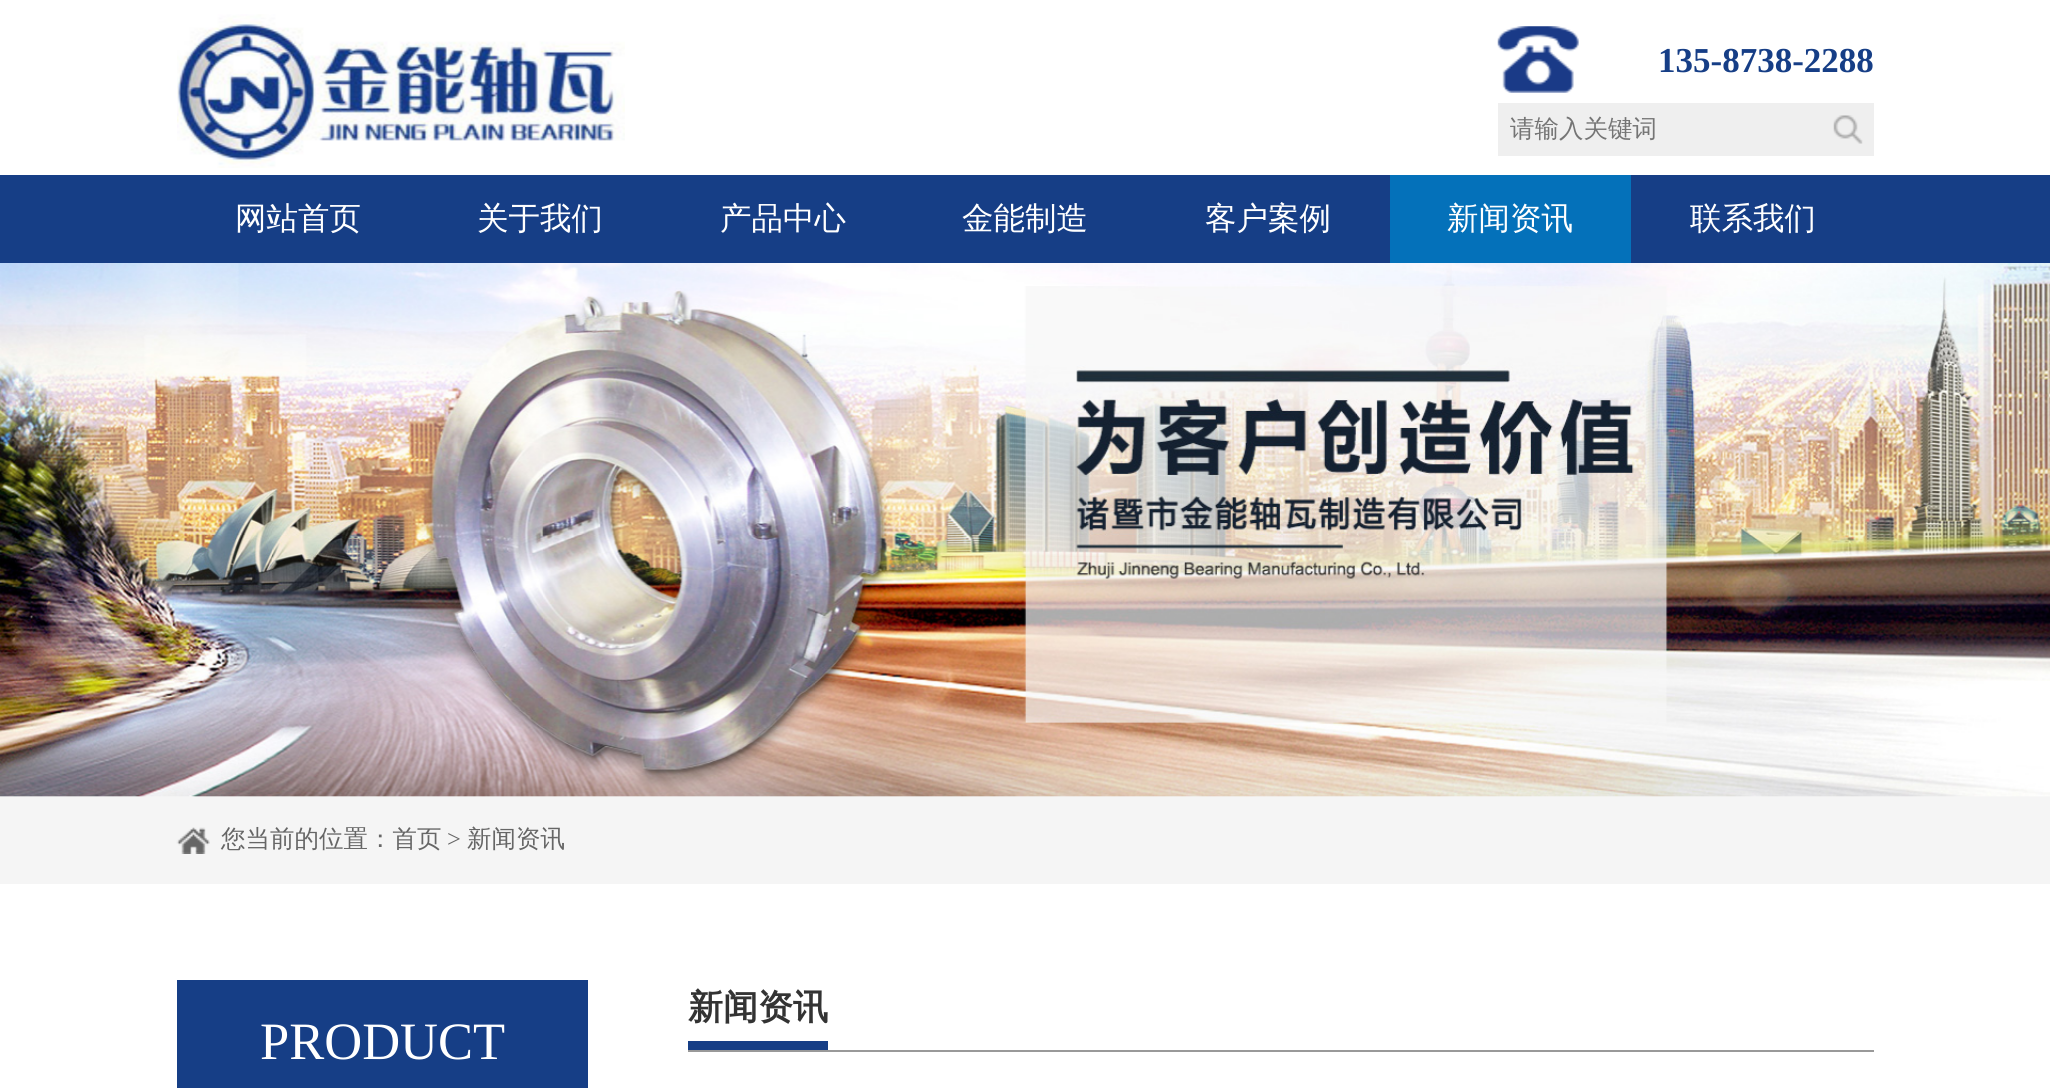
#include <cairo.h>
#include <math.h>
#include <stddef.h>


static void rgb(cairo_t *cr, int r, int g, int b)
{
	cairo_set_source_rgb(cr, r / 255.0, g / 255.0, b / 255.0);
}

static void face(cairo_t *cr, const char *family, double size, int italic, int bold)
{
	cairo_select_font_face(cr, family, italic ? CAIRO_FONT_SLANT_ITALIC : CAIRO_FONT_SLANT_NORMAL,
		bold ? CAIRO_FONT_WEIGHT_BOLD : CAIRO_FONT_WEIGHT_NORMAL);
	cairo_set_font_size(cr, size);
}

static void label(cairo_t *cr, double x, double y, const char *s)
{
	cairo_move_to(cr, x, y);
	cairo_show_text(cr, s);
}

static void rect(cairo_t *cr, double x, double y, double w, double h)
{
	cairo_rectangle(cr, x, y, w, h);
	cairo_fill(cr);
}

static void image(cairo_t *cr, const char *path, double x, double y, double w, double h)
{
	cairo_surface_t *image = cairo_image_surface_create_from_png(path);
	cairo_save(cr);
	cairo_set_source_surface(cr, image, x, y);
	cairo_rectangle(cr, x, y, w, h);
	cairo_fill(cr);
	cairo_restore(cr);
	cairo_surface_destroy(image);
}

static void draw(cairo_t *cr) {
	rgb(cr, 255, 255, 255);
	cairo_paint(cr);
	image(cr, "image0.png", 177, 14, 448, 154);
	image(cr, "image1.png", 1497, 26, 82, 67);
	face(cr, "Liberation Serif", 35, 0, 1);
	rgb(cr, 22, 62, 134);
	label(cr, 1658, 72, "135-8738-2288");
	rgb(cr, 239, 239, 239);
	rect(cr, 1498, 103, 376, 53);
	face(cr, "WenQuanYi Zen Hei Medium", 24.5, 0, 0);
	rgb(cr, 117, 117, 117);
	label(cr, 1510, 137, "请输入关键词");
	image(cr, "image2.png", 1833, 115, 30, 29);
	rgb(cr, 22, 62, 134);
	rect(cr, 0, 175, 2050, 88);
	face(cr, "WenQuanYi Zen Hei Medium", 31.5, 0, 0);
	rgb(cr, 255, 255, 255);
	label(cr, 235, 229, "网站首页");
	label(cr, 477, 229, "关于我们");
	label(cr, 720, 229, "产品中心");
	label(cr, 962, 229, "金能制造");
	label(cr, 1205, 229, "客户案例");
	rgb(cr, 4, 113, 186);
	rect(cr, 1390, 175, 241, 88);
	rgb(cr, 255, 255, 255);
	label(cr, 1447, 229, "新闻资讯");
	label(cr, 1690, 229, "联系我们");
	rgb(cr, 245, 245, 245);
	rect(cr, 0, 796, 2050, 88);
	image(cr, "image3.png", 0, 263, 2050, 534);
	image(cr, "image4.png", 176, 827, 34, 27);
	face(cr, "WenQuanYi Zen Hei Medium", 24.5, 0, 0);
	rgb(cr, 102, 102, 102);
	label(cr, 221, 847, "您当前的位置：首页");
	face(cr, "Liberation Serif", 24.5, 0, 0);
	label(cr, 447, 847, ">");
	face(cr, "WenQuanYi Zen Hei Medium", 24.5, 0, 0);
	label(cr, 467, 847, "新闻资讯");
	rgb(cr, 153, 153, 153);
	rect(cr, 688, 1050, 1186, 2);
	rgb(cr, 22, 62, 134);
	rect(cr, 688, 1041, 140, 9);
	face(cr, "WenQuanYi Zen Hei", 35, 0, 1);
	rgb(cr, 51, 51, 51);
	label(cr, 688, 1019, "新闻资讯");
	rgb(cr, 22, 62, 134);
	rect(cr, 177, 980, 411, 108);
	face(cr, "Liberation Serif", 52.5, 0, 0);
	rgb(cr, 255, 255, 255);
	label(cr, 260, 1059, "PRODUCT");
}

int main(void) {
	cairo_surface_t *surface = cairo_image_surface_create(CAIRO_FORMAT_RGB24, 2050, 1088);
	cairo_t *cr = cairo_create(surface);
	cairo_font_options_t *options = cairo_font_options_create();
	cairo_font_options_set_hint_metrics(options, CAIRO_HINT_METRICS_OFF);
	cairo_font_options_set_hint_style(options, CAIRO_HINT_STYLE_NONE);
	cairo_set_font_options(cr, options);
	cairo_set_miter_limit(cr, 4);
	draw(cr);
	cairo_surface_write_to_png(surface, "render.png");
	cairo_font_options_destroy(options);
	cairo_destroy(cr);
	cairo_surface_destroy(surface);
	return 0;
}
